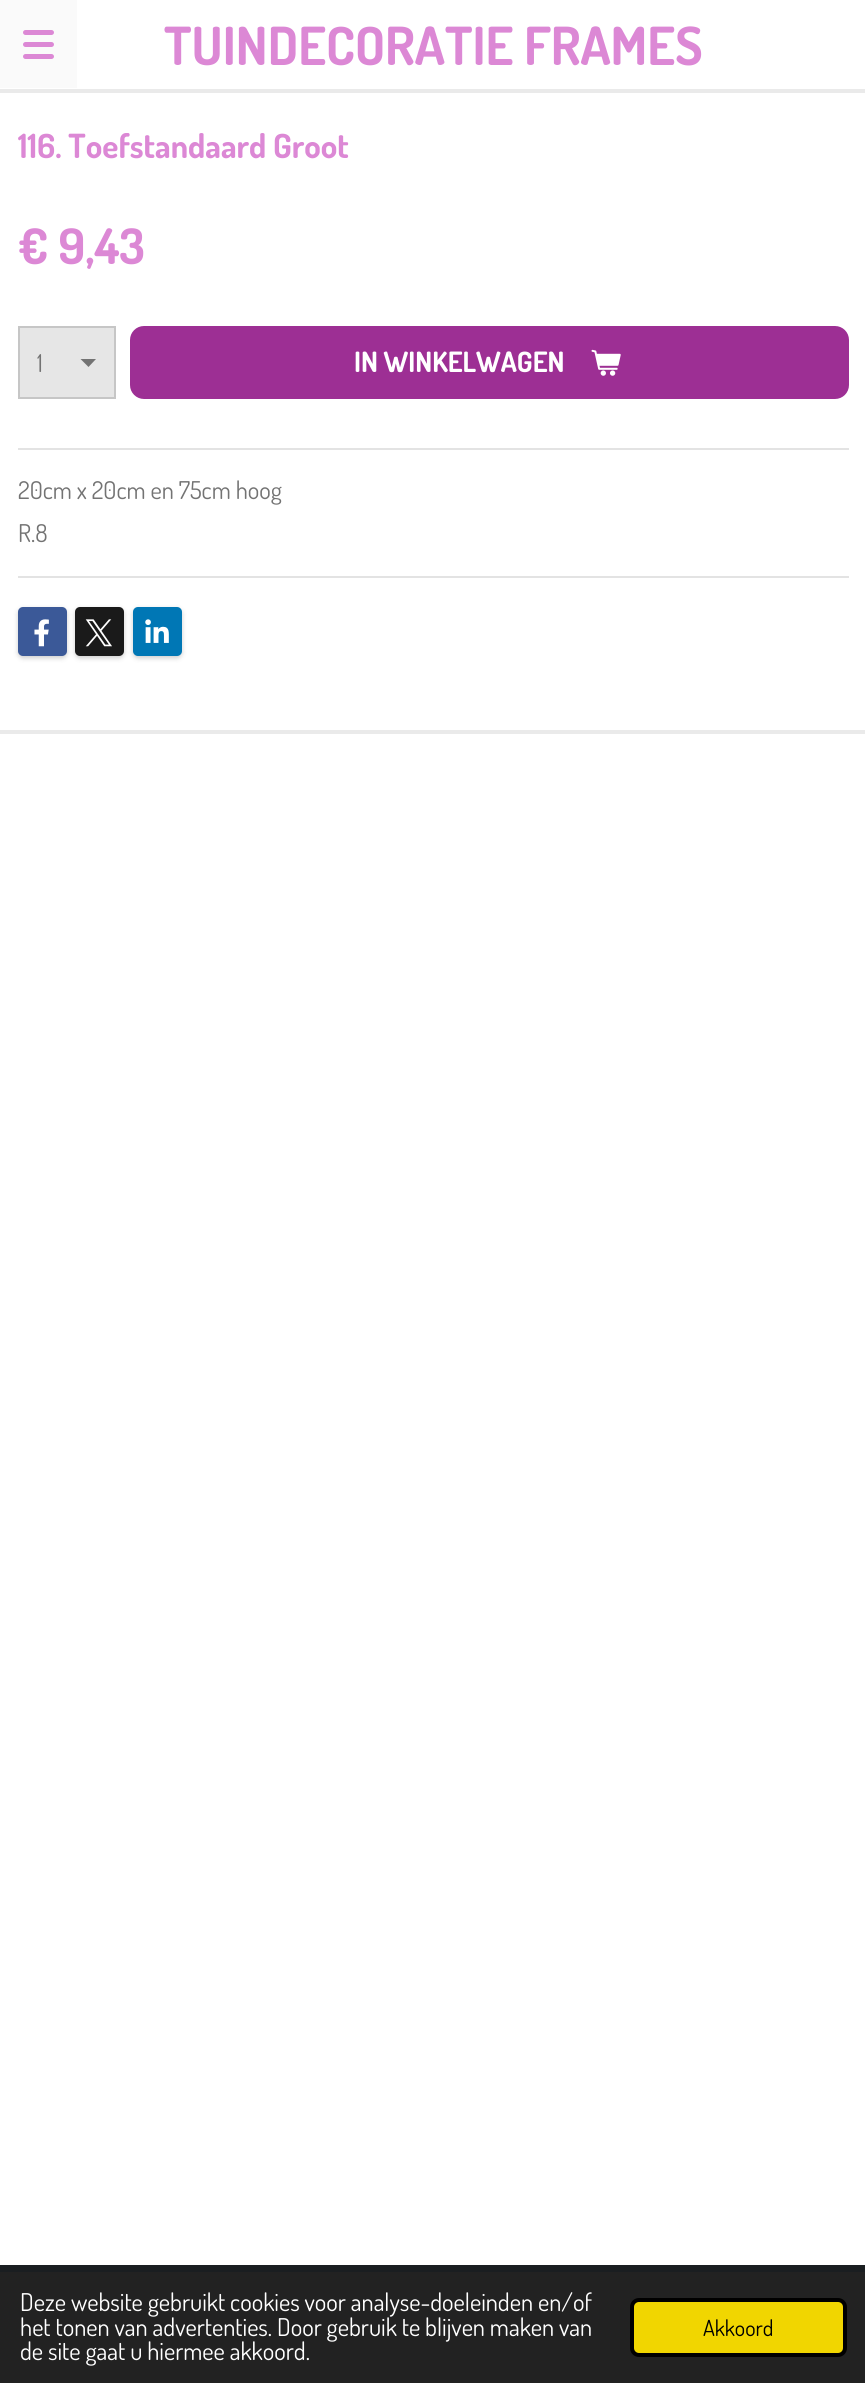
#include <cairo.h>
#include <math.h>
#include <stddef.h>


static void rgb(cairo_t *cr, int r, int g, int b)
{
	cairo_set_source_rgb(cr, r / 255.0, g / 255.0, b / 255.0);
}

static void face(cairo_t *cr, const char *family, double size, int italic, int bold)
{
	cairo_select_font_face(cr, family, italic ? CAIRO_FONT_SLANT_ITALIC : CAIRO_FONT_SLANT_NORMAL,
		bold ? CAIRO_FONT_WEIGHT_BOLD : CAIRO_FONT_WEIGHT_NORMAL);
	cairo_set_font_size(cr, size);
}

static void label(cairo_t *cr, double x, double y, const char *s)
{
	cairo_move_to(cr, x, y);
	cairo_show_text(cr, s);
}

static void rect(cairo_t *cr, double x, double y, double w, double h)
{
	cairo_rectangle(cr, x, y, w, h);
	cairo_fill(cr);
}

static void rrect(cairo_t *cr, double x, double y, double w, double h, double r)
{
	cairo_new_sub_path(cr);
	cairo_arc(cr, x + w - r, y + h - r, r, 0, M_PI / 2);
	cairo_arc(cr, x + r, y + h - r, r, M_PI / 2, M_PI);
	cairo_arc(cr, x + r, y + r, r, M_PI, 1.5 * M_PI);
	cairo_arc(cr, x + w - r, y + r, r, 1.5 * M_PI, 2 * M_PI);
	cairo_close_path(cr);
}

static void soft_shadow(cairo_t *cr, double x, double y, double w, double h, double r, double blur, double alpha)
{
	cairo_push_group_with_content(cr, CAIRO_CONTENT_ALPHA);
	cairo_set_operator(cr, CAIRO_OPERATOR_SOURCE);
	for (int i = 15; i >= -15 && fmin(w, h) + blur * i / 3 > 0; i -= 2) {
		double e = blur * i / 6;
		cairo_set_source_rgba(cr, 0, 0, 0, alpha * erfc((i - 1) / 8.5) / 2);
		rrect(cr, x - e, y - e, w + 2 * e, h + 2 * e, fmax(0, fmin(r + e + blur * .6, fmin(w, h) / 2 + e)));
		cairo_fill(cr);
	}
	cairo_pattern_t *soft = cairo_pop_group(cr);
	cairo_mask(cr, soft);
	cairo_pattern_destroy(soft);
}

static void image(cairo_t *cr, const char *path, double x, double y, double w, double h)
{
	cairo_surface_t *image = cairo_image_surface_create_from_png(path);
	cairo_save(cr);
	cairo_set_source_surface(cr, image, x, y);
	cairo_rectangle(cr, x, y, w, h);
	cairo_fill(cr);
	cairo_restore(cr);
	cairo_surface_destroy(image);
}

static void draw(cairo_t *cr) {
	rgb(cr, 255, 255, 255);
	cairo_paint(cr);
	rgb(cr, 250, 250, 250);
	rect(cr, 0, 0, 77, 88);
	rgb(cr, 220, 136, 213);
	rrect(cr, 23, 42, 31, 5, 2.5);
	cairo_fill(cr);
	rrect(cr, 23, 30, 31, 5, 2.5);
	cairo_fill(cr);
	rrect(cr, 23, 54, 31, 5, 2.5);
	cairo_fill(cr);
	face(cr, "Dosis", 52.5, 0, 1);
	label(cr, 164, 65, "TUINDECORATIE FRAMES");
	rgb(cr, 234, 234, 234);
	rect(cr, 0, 89, 865, 4);
	rect(cr, 0, 730, 865, 4);
	face(cr, "Dosis", 33.25, 0, 1);
	rgb(cr, 220, 136, 213);
	label(cr, 18, 158, "116. Toefstandaard Groot");
	face(cr, "Dosis", 49, 0, 1);
	label(cr, 18, 264, "€ 9,43");
	rgb(cr, 230, 230, 230);
	rect(cr, 20, 328, 94, 69);
	rgb(cr, 115, 115, 115);
	cairo_new_path(cr);
	cairo_move_to(cr, 88.5, 367);
	cairo_line_to(cr, 80.5, 359);
	cairo_line_to(cr, 96, 359);
	cairo_close_path(cr);
	cairo_fill(cr);
	cairo_rectangle(cr, 19, 327, 96, 71);
	rgb(cr, 198, 198, 198);
	cairo_stroke(cr);
	face(cr, "Dosis", 24.5, 0, 0);
	rgb(cr, 115, 115, 115);
	label(cr, 37, 372, "1");
	rgb(cr, 157, 47, 148);
	rrect(cr, 130, 326, 719, 73, 14);
	cairo_fill(cr);
	face(cr, "Dosis", 28, 0, 1);
	rgb(cr, 255, 255, 255);
	label(cr, 354, 372, "IN WINKELWAGEN");
	image(cr, "image0.png", 591, 349, 30, 27);
	rgb(cr, 227, 227, 227);
	rect(cr, 18, 448, 831, 2);
	face(cr, "Dosis", 24.5, 0, 0);
	rgb(cr, 115, 115, 115);
	label(cr, 18, 499, "20cm x 20cm en 75cm hoog");
	label(cr, 18, 542, "R.8");
	rgb(cr, 227, 227, 227);
	rect(cr, 18, 576, 831, 2);
	rgb(cr, 0, 0, 0);
	soft_shadow(cr, 18, 609, 49, 49, 5, 2.5, 0.2);
	rgb(cr, 59, 89, 152);
	rrect(cr, 18, 607, 49, 49, 5);
	cairo_fill(cr);
	image(cr, "image1.png", 34, 619, 15, 28);
	rgb(cr, 0, 0, 0);
	soft_shadow(cr, 75, 609, 49, 49, 5, 2.5, 0.2);
	rgb(cr, 26, 26, 26);
	rrect(cr, 75, 607, 49, 49, 5);
	cairo_fill(cr);
	image(cr, "image2.png", 85, 619, 27, 28);
	rgb(cr, 0, 0, 0);
	soft_shadow(cr, 133, 609, 49, 49, 5, 2.5, 0.2);
	rgb(cr, 0, 119, 181);
	rrect(cr, 133, 607, 49, 49, 5);
	cairo_fill(cr);
	image(cr, "image3.png", 145, 619, 24, 24);
	rgb(cr, 26, 30, 33);
	rect(cr, 0, 2265, 865, 7);
	rgb(cr, 34, 34, 34);
	rect(cr, 0, 2272, 865, 111);
	rgb(cr, 255, 255, 255);
	label(cr, 20, 2311, "Deze website gebruikt cookies voor analyse-doeleinden en/of");
	label(cr, 20, 2336, "het tonen van advertenties. Door gebruik te blijven maken van");
	label(cr, 20, 2360, "de site gaat u hiermee akkoord.");
	rgb(cr, 241, 214, 0);
	rrect(cr, 632, 2300, 213, 55, 7);
	cairo_fill_preserve(cr);
	rgb(cr, 0, 0, 0);
	cairo_set_line_width(cr, 4);
	cairo_stroke(cr);
	face(cr, "Dosis", 22, 0, 0);
	label(cr, 703, 2336, "Akkoord");
}

int main(void) {
	cairo_surface_t *surface = cairo_image_surface_create(CAIRO_FORMAT_RGB24, 865, 2383);
	cairo_t *cr = cairo_create(surface);
	cairo_font_options_t *options = cairo_font_options_create();
	cairo_font_options_set_hint_metrics(options, CAIRO_HINT_METRICS_OFF);
	cairo_font_options_set_hint_style(options, CAIRO_HINT_STYLE_NONE);
	cairo_set_font_options(cr, options);
	cairo_set_miter_limit(cr, 4);
	draw(cr);
	cairo_surface_write_to_png(surface, "render.png");
	cairo_font_options_destroy(options);
	cairo_destroy(cr);
	cairo_surface_destroy(surface);
	return 0;
}
